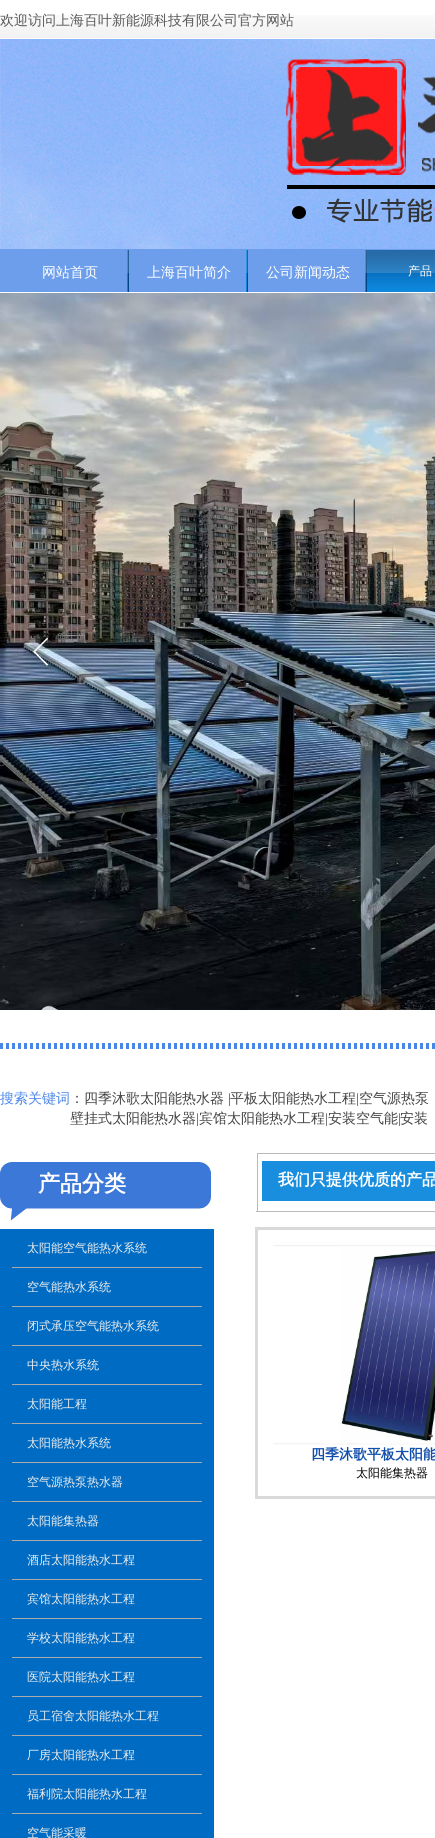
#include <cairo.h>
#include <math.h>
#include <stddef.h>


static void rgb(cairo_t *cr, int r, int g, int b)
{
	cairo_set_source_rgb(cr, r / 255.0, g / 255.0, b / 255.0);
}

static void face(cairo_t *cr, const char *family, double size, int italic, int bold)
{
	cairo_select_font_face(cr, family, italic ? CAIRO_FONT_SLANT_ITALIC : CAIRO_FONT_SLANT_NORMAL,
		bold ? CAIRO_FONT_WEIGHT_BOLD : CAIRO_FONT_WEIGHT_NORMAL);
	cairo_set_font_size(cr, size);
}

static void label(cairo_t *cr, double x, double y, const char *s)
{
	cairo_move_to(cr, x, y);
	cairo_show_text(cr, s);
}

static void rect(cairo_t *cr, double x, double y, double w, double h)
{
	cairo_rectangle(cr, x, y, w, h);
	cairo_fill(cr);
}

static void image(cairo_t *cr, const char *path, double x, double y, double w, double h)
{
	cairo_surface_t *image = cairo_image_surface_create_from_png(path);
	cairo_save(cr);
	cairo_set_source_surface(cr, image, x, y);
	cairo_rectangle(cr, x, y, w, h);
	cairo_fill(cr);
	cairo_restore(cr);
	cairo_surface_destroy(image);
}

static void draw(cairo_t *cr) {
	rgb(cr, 255, 255, 255);
	cairo_paint(cr);
	image(cr, "image0.png", 0, 15, 435, 23);
	face(cr, "WenQuanYi Zen Hei Medium", 14, 0, 0);
	rgb(cr, 90, 90, 90);
	label(cr, 0, 25, "欢迎访问上海百叶新能源科技有限公司官方网站");
	image(cr, "image1.png", 0, 39, 435, 210);
	rgb(cr, 109, 158, 235);
	rect(cr, 0, 249, 435, 43);
	image(cr, "image2.png", 127, 250, 2, 42);
	rgb(cr, 255, 255, 255);
	label(cr, 42, 277, "网站首页");
	image(cr, "image2.png", 246, 250, 2, 42);
	label(cr, 147, 277, "上海百叶简介");
	image(cr, "image2.png", 365, 250, 2, 42);
	label(cr, 266, 277, "公司新闻动态");
	image(cr, "image3.png", 367, 250, 68, 42);
	face(cr, "WenQuanYi Zen Hei Medium", 12, 0, 0);
	label(cr, 408, 275, "产品");
	image(cr, "image4.png", 0, 293, 435, 717);
	image(cr, "image5.png", 32, 637, 17, 29);
	cairo_new_path(cr);
	cairo_move_to(cr, 0, 1044.5);
	cairo_line_to(cr, 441, 1044.5);
	rgb(cr, 74, 134, 232);
	cairo_set_line_width(cr, 3);
	cairo_set_dash(cr, (double[]){3, 3}, 2, 0);
	cairo_stroke(cr);
	cairo_new_path(cr);
	cairo_move_to(cr, 0, 1047.5);
	cairo_line_to(cr, 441, 1047.5);
	cairo_stroke(cr);
	face(cr, "WenQuanYi Zen Hei Medium", 14, 0, 0);
	label(cr, 0, 1103, "搜索关键词");
	rgb(cr, 67, 67, 67);
	label(cr, 70, 1103, "：四季沐歌太阳能热水器");
	face(cr, "Liberation Serif", 14, 0, 0);
	label(cr, 228, 1103, "|");
	face(cr, "WenQuanYi Zen Hei Medium", 14, 0, 0);
	label(cr, 230, 1103, "平板太阳能热水工程");
	face(cr, "Liberation Serif", 14, 0, 0);
	label(cr, 356, 1103, "|");
	face(cr, "WenQuanYi Zen Hei Medium", 14, 0, 0);
	label(cr, 359, 1103, "空气源热泵");
	label(cr, 70, 1123, "壁挂式太阳能热水器");
	face(cr, "Liberation Serif", 14, 0, 0);
	label(cr, 196, 1123, "|");
	face(cr, "WenQuanYi Zen Hei Medium", 14, 0, 0);
	label(cr, 199, 1123, "宾馆太阳能热水工程");
	face(cr, "Liberation Serif", 14, 0, 0);
	label(cr, 325, 1123, "|");
	face(cr, "WenQuanYi Zen Hei Medium", 14, 0, 0);
	label(cr, 328, 1123, "安装空气能");
	face(cr, "Liberation Serif", 14, 0, 0);
	label(cr, 398, 1123, "|");
	face(cr, "WenQuanYi Zen Hei Medium", 14, 0, 0);
	label(cr, 400, 1123, "安装");
	rgb(cr, 186, 186, 186);
	rect(cr, 257, 1153, 178, 1);
	image(cr, "image6.png", 0, 1162, 211, 59);
	rect(cr, 257, 1153, 1, 58);
	rgb(cr, 25, 142, 222);
	rect(cr, 262, 1161, 173, 40);
	face(cr, "WenQuanYi Zen Hei", 22, 0, 1);
	rgb(cr, 255, 255, 255);
	label(cr, 38, 1191, "产品分类");
	face(cr, "WenQuanYi Zen Hei", 16, 0, 1);
	label(cr, 278, 1185, "我们只提供优质的产品");
	rgb(cr, 186, 186, 186);
	rect(cr, 256, 1211, 179, 1);
	rgb(cr, 0, 107, 195);
	rect(cr, 0, 1229, 214, 609);
	rgb(cr, 170, 170, 170);
	rect(cr, 12, 1267, 190, 1);
	face(cr, "WenQuanYi Zen Hei Medium", 12, 0, 0);
	rgb(cr, 238, 238, 238);
	label(cr, 27, 1252, "太阳能空气能热水系统");
	rgb(cr, 170, 170, 170);
	rect(cr, 12, 1306, 190, 1);
	rgb(cr, 238, 238, 238);
	label(cr, 27, 1291, "空气能热水系统");
	rgb(cr, 170, 170, 170);
	rect(cr, 12, 1345, 190, 1);
	rgb(cr, 238, 238, 238);
	label(cr, 27, 1330, "闭式承压空气能热水系统");
	rgb(cr, 170, 170, 170);
	rect(cr, 12, 1384, 190, 1);
	rgb(cr, 238, 238, 238);
	label(cr, 27, 1369, "中央热水系统");
	rgb(cr, 170, 170, 170);
	rect(cr, 12, 1423, 190, 1);
	rgb(cr, 238, 238, 238);
	label(cr, 27, 1408, "太阳能工程");
	rgb(cr, 170, 170, 170);
	rect(cr, 12, 1462, 190, 1);
	rgb(cr, 238, 238, 238);
	label(cr, 27, 1447, "太阳能热水系统");
	rgb(cr, 170, 170, 170);
	rect(cr, 12, 1501, 190, 1);
	rgb(cr, 238, 238, 238);
	label(cr, 27, 1486, "空气源热泵热水器");
	rgb(cr, 170, 170, 170);
	rect(cr, 12, 1540, 190, 1);
	rgb(cr, 238, 238, 238);
	label(cr, 27, 1525, "太阳能集热器");
	rgb(cr, 170, 170, 170);
	rect(cr, 12, 1579, 190, 1);
	rgb(cr, 238, 238, 238);
	label(cr, 27, 1564, "酒店太阳能热水工程");
	rgb(cr, 170, 170, 170);
	rect(cr, 12, 1618, 190, 1);
	rgb(cr, 238, 238, 238);
	label(cr, 27, 1603, "宾馆太阳能热水工程");
	rgb(cr, 170, 170, 170);
	rect(cr, 12, 1657, 190, 1);
	rgb(cr, 238, 238, 238);
	label(cr, 27, 1642, "学校太阳能热水工程");
	rgb(cr, 170, 170, 170);
	rect(cr, 12, 1696, 190, 1);
	rgb(cr, 238, 238, 238);
	label(cr, 27, 1681, "医院太阳能热水工程");
	rgb(cr, 170, 170, 170);
	rect(cr, 12, 1735, 190, 1);
	rgb(cr, 238, 238, 238);
	label(cr, 27, 1720, "员工宿舍太阳能热水工程");
	rgb(cr, 170, 170, 170);
	rect(cr, 12, 1774, 190, 1);
	rgb(cr, 238, 238, 238);
	label(cr, 27, 1759, "厂房太阳能热水工程");
	rgb(cr, 170, 170, 170);
	rect(cr, 12, 1813, 190, 1);
	rgb(cr, 238, 238, 238);
	label(cr, 27, 1798, "福利院太阳能热水工程");
	label(cr, 27, 1837, "空气能采暖");
	cairo_rectangle(cr, 256.5, 1228.5, 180, 269);
	rgb(cr, 217, 217, 217);
	cairo_set_dash(cr, NULL, 0, 0);
	cairo_stroke(cr);
	image(cr, "image7.png", 273, 1245, 162, 200);
	face(cr, "WenQuanYi Zen Hei", 14, 0, 1);
	rgb(cr, 16, 78, 170);
	label(cr, 311, 1459, "四季沐歌平板太阳能");
	face(cr, "WenQuanYi Zen Hei Medium", 12, 0, 0);
	rgb(cr, 0, 0, 0);
	label(cr, 356, 1477, "太阳能集热器");
}

int main(void) {
	cairo_surface_t *surface = cairo_image_surface_create(CAIRO_FORMAT_RGB24, 435, 1838);
	cairo_t *cr = cairo_create(surface);
	cairo_font_options_t *options = cairo_font_options_create();
	cairo_font_options_set_hint_metrics(options, CAIRO_HINT_METRICS_OFF);
	cairo_font_options_set_hint_style(options, CAIRO_HINT_STYLE_NONE);
	cairo_set_font_options(cr, options);
	cairo_set_miter_limit(cr, 4);
	draw(cr);
	cairo_surface_write_to_png(surface, "render.png");
	cairo_font_options_destroy(options);
	cairo_destroy(cr);
	cairo_surface_destroy(surface);
	return 0;
}
